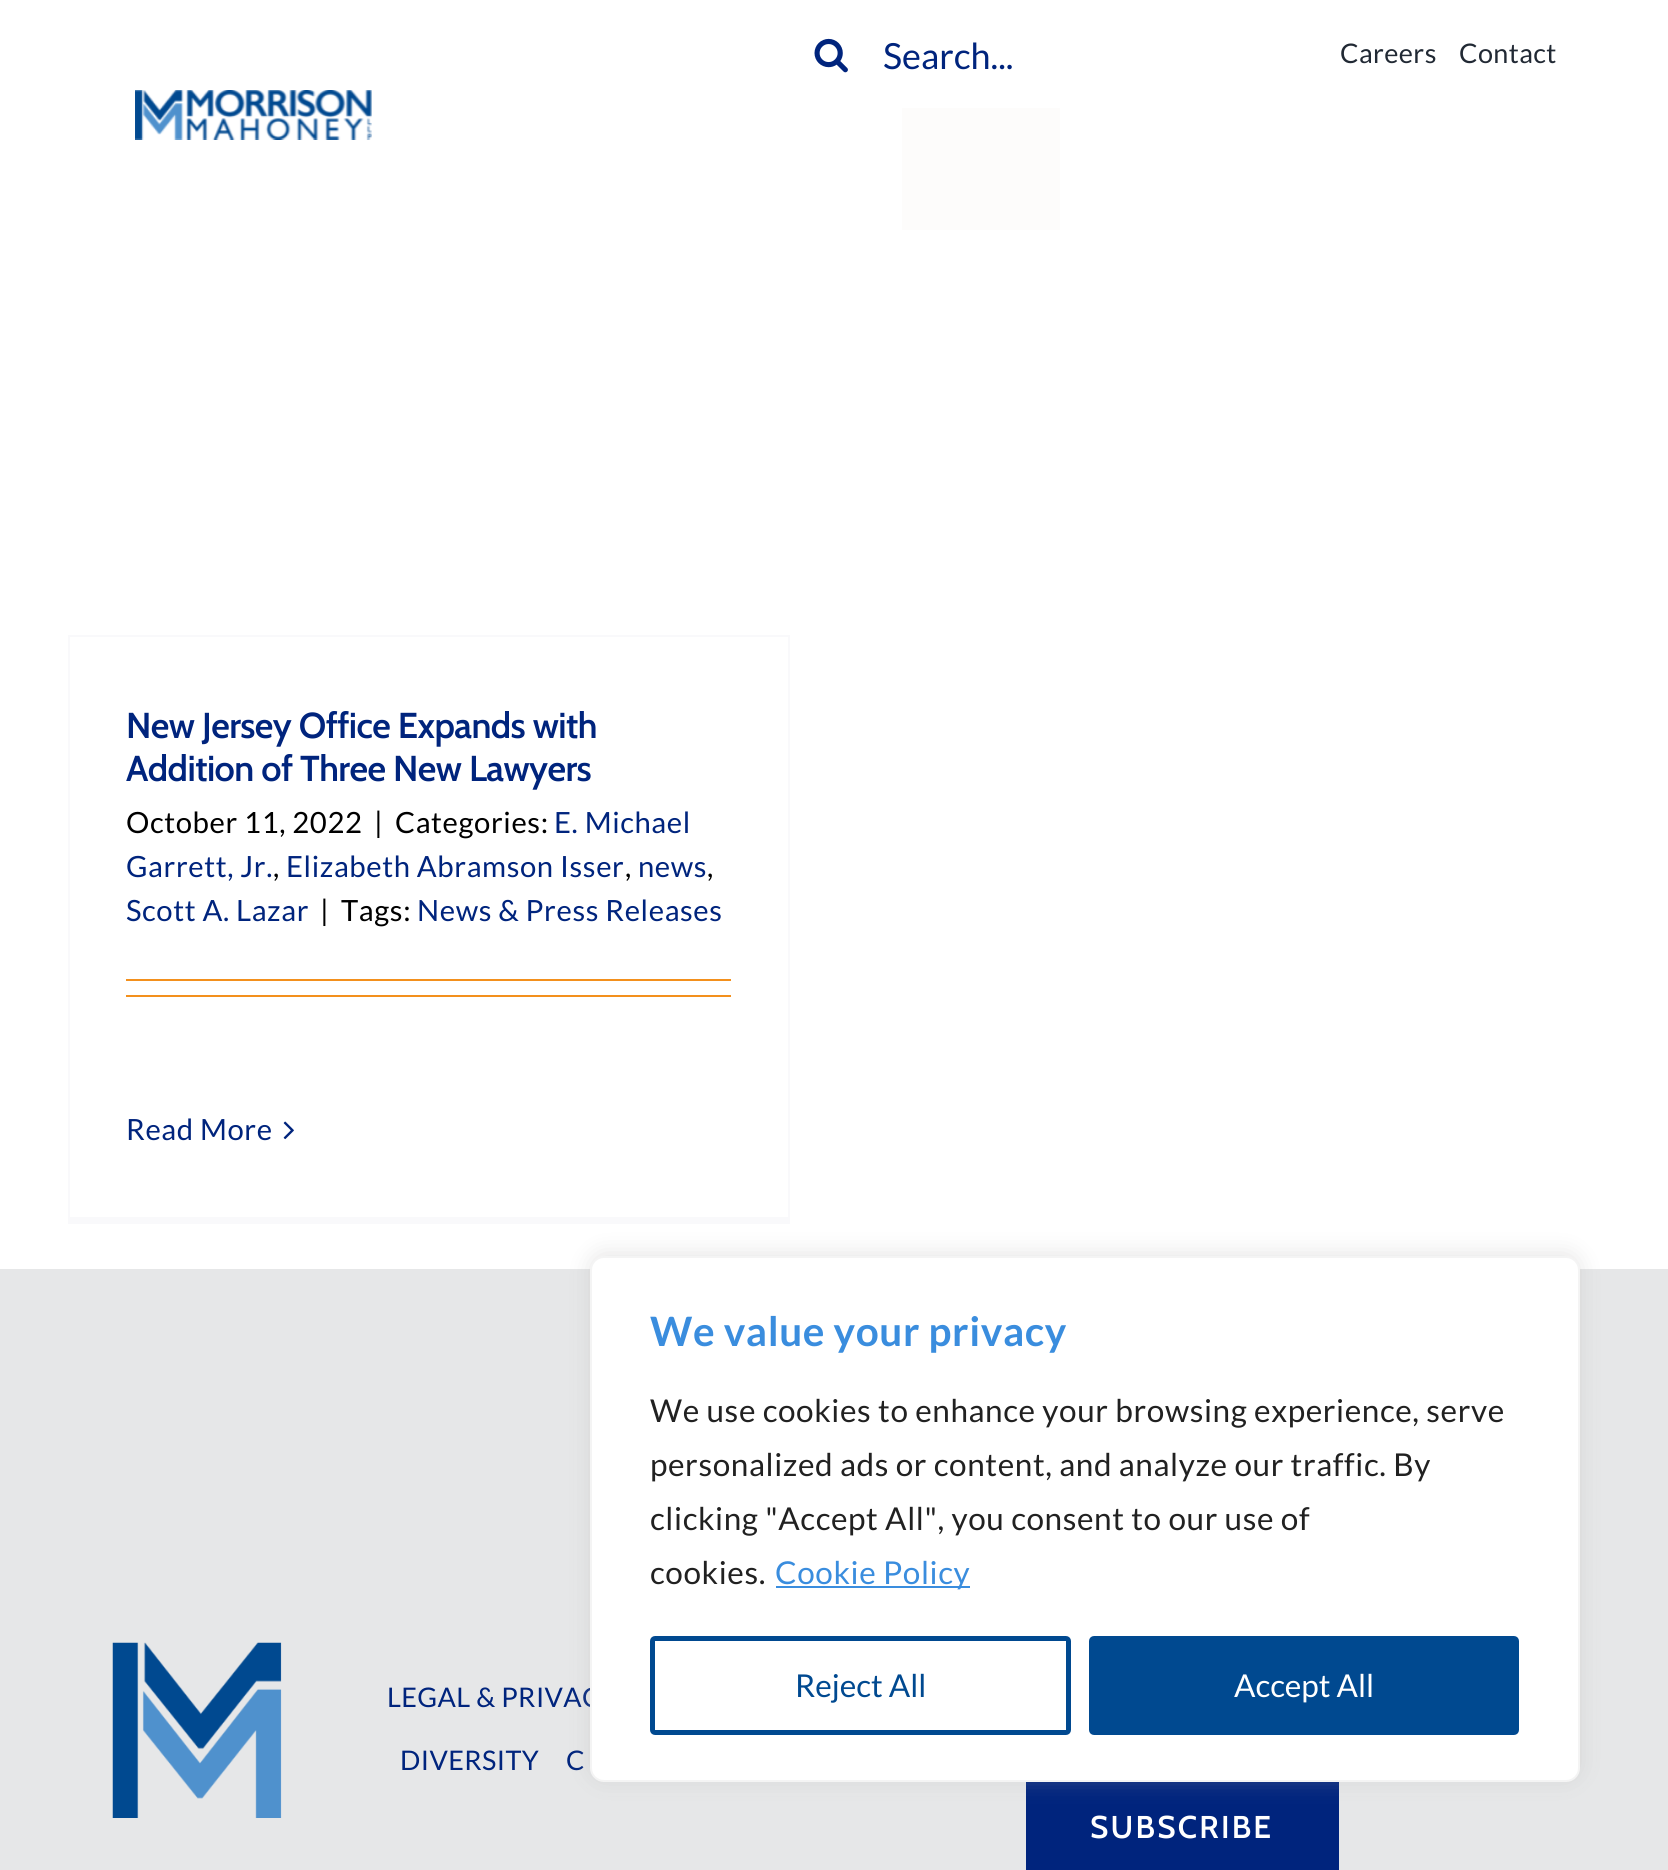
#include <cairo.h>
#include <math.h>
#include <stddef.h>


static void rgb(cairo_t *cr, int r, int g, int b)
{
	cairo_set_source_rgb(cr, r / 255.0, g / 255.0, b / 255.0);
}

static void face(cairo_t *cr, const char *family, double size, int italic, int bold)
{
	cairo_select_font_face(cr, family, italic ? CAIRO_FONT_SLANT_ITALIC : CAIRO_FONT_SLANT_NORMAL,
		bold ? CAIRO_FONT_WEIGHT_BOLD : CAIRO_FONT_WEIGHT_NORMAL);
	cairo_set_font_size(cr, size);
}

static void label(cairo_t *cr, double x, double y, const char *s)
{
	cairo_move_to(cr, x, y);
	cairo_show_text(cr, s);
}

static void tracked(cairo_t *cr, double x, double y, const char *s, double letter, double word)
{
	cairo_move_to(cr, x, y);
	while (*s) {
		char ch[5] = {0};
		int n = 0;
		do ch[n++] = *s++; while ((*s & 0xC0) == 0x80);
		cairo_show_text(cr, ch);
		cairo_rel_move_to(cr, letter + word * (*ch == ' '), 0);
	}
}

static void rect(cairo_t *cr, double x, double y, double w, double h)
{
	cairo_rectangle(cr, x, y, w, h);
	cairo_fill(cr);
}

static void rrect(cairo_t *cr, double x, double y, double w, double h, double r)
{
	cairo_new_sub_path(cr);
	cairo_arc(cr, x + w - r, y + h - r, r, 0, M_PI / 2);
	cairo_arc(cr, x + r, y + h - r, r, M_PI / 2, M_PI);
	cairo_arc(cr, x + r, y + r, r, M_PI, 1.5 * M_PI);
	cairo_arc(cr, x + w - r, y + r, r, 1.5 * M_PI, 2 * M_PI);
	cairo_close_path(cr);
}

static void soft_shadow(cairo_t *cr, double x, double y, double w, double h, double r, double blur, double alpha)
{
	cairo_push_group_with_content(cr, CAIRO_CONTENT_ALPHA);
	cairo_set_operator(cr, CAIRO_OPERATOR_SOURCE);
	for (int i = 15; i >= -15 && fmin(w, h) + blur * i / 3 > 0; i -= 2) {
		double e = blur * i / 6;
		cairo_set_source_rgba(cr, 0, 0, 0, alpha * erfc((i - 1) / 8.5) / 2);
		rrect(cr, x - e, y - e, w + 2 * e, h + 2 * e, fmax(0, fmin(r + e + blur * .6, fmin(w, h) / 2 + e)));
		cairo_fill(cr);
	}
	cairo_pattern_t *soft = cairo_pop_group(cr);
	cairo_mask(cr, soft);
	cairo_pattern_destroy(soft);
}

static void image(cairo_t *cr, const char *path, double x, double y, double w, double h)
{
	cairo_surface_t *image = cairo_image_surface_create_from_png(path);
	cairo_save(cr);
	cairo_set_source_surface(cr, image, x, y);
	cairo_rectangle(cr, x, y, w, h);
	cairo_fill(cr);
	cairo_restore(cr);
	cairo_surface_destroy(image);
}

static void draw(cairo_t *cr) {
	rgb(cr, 255, 255, 255);
	cairo_paint(cr);
	image(cr, "image0.png", 814, 38, 34, 35);
	face(cr, "Lato", 36, 0, 0);
	rgb(cr, 0, 36, 125);
	label(cr, 883, 69, "Search...");
	face(cr, "Lato", 27, 0, 0);
	rgb(cr, 33, 41, 52);
	tracked(cr, 1340, 63, "Careers", 0.4, 0);
	tracked(cr, 1459, 63, "Contact", 0.4, 0);
	rgb(cr, 253, 252, 251);
	rect(cr, 902, 108, 158, 122);
	image(cr, "image1.png", 135, 90, 237, 50);
	rgb(cr, 249, 249, 251);
	rect(cr, 68, 635, 722, 2);
	rect(cr, 788, 635, 2, 589);
	rect(cr, 68, 1217, 722, 7);
	rect(cr, 68, 635, 2, 589);
	face(cr, "Cabin SemiBold", 36, 0, 0);
	rgb(cr, 0, 36, 125);
	tracked(cr, 126, 738, "New Jersey Office Expands with", -0.55, 0);
	tracked(cr, 126, 781, "Addition of Three New Lawyers", -0.55, 0);
	face(cr, "Lato", 29.25, 0, 0);
	rgb(cr, 0, 0, 0);
	tracked(cr, 126, 833, "October 11, 2022", 0.6, 0);
	tracked(cr, 374, 833, "|", 0.6, 0);
	tracked(cr, 395, 833, "Categories:", 0.6, 0);
	rgb(cr, 0, 36, 125);
	tracked(cr, 554, 833, "E. Michael", 0.6, 0);
	tracked(cr, 126, 877, "Garrett, Jr.", 0.6, 0);
	rgb(cr, 0, 0, 0);
	tracked(cr, 273, 877, ",", 0.6, 0);
	rgb(cr, 0, 36, 125);
	tracked(cr, 286, 877, "Elizabeth Abramson Isser", 0.6, 0);
	rgb(cr, 0, 0, 0);
	tracked(cr, 625, 877, ",", 0.6, 0);
	rgb(cr, 0, 36, 125);
	tracked(cr, 638, 877, "news", 0.6, 0);
	rgb(cr, 0, 0, 0);
	tracked(cr, 707, 877, ",", 0.6, 0);
	rgb(cr, 0, 36, 125);
	tracked(cr, 126, 921, "Scott A. Lazar", 0.6, 0);
	rgb(cr, 0, 0, 0);
	tracked(cr, 320, 921, "|", 0.6, 0);
	tracked(cr, 341, 921, "Tags:", 0.6, 0);
	rgb(cr, 0, 36, 125);
	tracked(cr, 417, 921, "News & Press Releases", 0.6, 0);
	rgb(cr, 243, 144, 29);
	rect(cr, 126, 979, 605, 2);
	rect(cr, 126, 995, 605, 2);
	rgb(cr, 0, 36, 125);
	tracked(cr, 126, 1140, "Read More", 0.6, 0);
	image(cr, "image2.png", 283, 1121, 11, 19);
	rgb(cr, 230, 231, 232);
	rect(cr, 0, 1269, 1668, 601);
	image(cr, "image3.png", 112, 1642, 170, 176);
	face(cr, "Lato", 27, 0, 0);
	rgb(cr, 0, 36, 125);
	tracked(cr, 387, 1707, "LEGAL & PRIVAC", 0.4, 0);
	tracked(cr, 400, 1770, "DIVERSITY", 0.4, 0);
	tracked(cr, 566, 1770, "C", 0.4, 0);
	rect(cr, 1026, 1782, 313, 88);
	face(cr, "Cabin SemiBold", 31.5, 0, 0);
	rgb(cr, 255, 255, 255);
	tracked(cr, 1090, 1838, "SUBSCRIBE", 2.25, 0);
	rgb(cr, 172, 171, 171);
	soft_shadow(cr, 590, 1253, 990, 527, 14, 11, 0.3);
	rgb(cr, 255, 255, 255);
	rrect(cr, 591, 1257, 988, 524, 13);
	cairo_fill_preserve(cr);
	rgb(cr, 244, 244, 244);
	cairo_stroke(cr);
	face(cr, "Lato", 40.5, 0, 1);
	rgb(cr, 58, 141, 222);
	tracked(cr, 650, 1346, "We value your privacy", 0.6, 0);
	face(cr, "Lato", 31.5, 0, 0);
	rgb(cr, 33, 33, 33);
	tracked(cr, 650, 1422, "We use cookies to enhance your browsing experience, serve", 0.6, 0);
	tracked(cr, 650, 1476, "personalized ads or content, and analyze our traffic. By", 0.6, 0);
	tracked(cr, 650, 1530, "clicking \"Accept All\", you consent to our use of", 0.6, 0);
	tracked(cr, 650, 1584, "cookies.", 0.6, 0);
	rgb(cr, 58, 141, 222);
	rect(cr, 776, 1586, 194, 2);
	tracked(cr, 775, 1584, "Cookie Policy", 0.6, 0);
	rrect(cr, 652.5, 1638.5, 416, 94, 2.5);
	rgb(cr, 0, 73, 144);
	cairo_set_line_width(cr, 5);
	cairo_stroke(cr);
	label(cr, 795, 1697, "Reject All");
	rrect(cr, 1091.5, 1638.5, 425, 94, 2.5);
	cairo_fill_preserve(cr);
	cairo_stroke(cr);
	rgb(cr, 255, 255, 255);
	label(cr, 1234, 1697, "Accept All");
}

int main(void) {
	cairo_surface_t *surface = cairo_image_surface_create(CAIRO_FORMAT_RGB24, 1668, 1870);
	cairo_t *cr = cairo_create(surface);
	cairo_font_options_t *options = cairo_font_options_create();
	cairo_font_options_set_hint_metrics(options, CAIRO_HINT_METRICS_OFF);
	cairo_font_options_set_hint_style(options, CAIRO_HINT_STYLE_NONE);
	cairo_set_font_options(cr, options);
	cairo_set_miter_limit(cr, 4);
	draw(cr);
	cairo_surface_write_to_png(surface, "render.png");
	cairo_font_options_destroy(options);
	cairo_destroy(cr);
	cairo_surface_destroy(surface);
	return 0;
}
